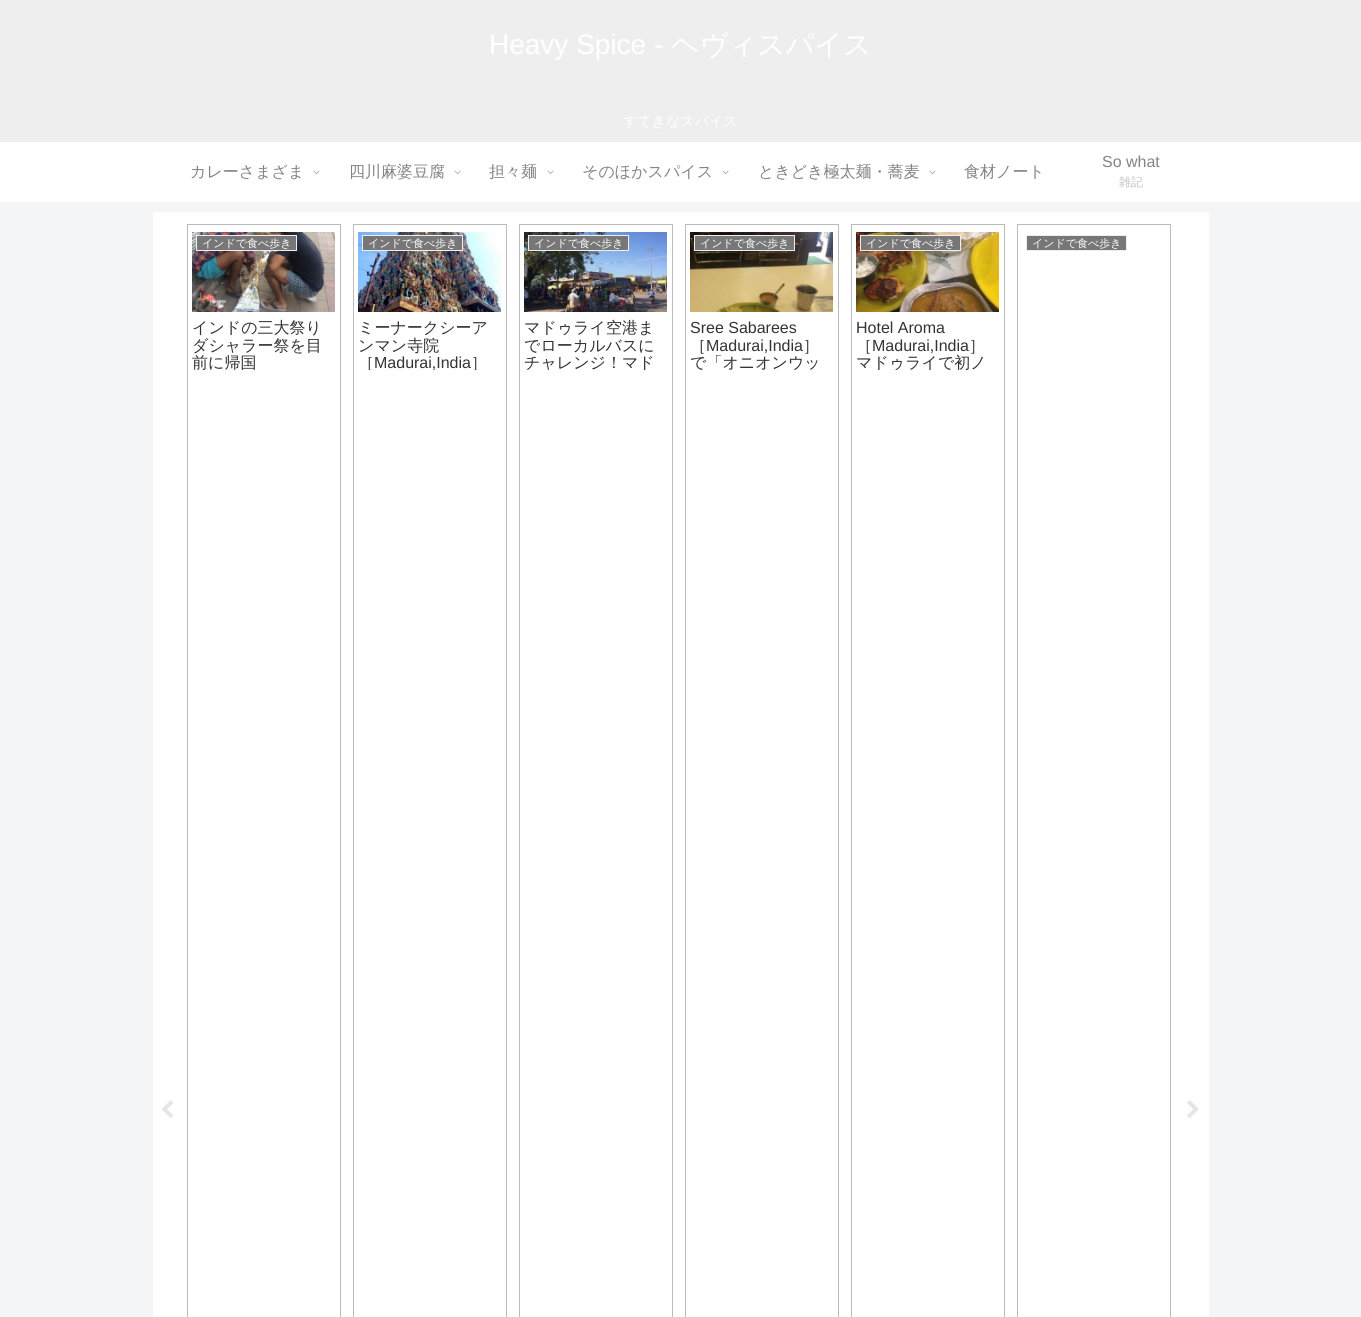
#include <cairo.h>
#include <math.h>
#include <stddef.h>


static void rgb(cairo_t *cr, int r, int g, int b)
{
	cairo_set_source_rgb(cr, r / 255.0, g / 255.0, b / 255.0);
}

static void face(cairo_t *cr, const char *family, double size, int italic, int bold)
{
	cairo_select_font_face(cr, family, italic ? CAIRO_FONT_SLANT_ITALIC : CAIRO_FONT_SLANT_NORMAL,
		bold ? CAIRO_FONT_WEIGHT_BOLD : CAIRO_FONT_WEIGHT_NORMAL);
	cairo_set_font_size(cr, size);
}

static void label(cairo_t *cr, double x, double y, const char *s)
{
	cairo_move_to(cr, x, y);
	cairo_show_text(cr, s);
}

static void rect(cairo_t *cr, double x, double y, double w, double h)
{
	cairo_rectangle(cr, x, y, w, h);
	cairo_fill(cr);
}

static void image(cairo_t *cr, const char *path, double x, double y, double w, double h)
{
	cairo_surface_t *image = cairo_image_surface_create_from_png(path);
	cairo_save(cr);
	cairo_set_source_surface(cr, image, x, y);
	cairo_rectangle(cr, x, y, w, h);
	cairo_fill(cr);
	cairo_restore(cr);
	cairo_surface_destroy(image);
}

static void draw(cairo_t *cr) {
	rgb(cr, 244, 245, 247);
	cairo_paint(cr);
	rgb(cr, 238, 238, 238);
	rect(cr, 0, 0, 1361, 142);
	face(cr, "Liberation Sans", 28, 0, 0);
	rgb(cr, 255, 255, 255);
	label(cr, 489, 54, "Heavy Spice -");
	face(cr, "WenQuanYi Zen Hei Medium", 28, 0, 0);
	label(cr, 671, 54, "ヘヴィスパイス");
	face(cr, "WenQuanYi Zen Hei Medium", 14, 0, 0);
	label(cr, 623, 126, "すてきなスパイス");
	rect(cr, 0, 142, 1361, 60);
	face(cr, "WenQuanYi Zen Hei Medium", 16, 0, 0);
	rgb(cr, 132, 132, 132);
	label(cr, 190, 177, "カレーさまざま");
	image(cr, "image0.png", 313, 170, 7, 4);
	label(cr, 349, 177, "四川麻婆豆腐");
	image(cr, "image0.png", 454, 170, 7, 4);
	label(cr, 489, 177, "担々麺");
	image(cr, "image0.png", 547, 170, 7, 4);
	label(cr, 582, 177, "そのほかスパイス");
	image(cr, "image0.png", 722, 170, 7, 4);
	label(cr, 758, 177, "ときどき極太麺・蕎麦");
	image(cr, "image0.png", 929, 170, 7, 4);
	label(cr, 964, 177, "食材ノート");
	face(cr, "Liberation Sans", 16, 0, 0);
	label(cr, 1102, 167, "So what");
	face(cr, "WenQuanYi Zen Hei Medium", 12, 0, 0);
	rgb(cr, 194, 194, 194);
	label(cr, 1119, 186, "雑記");
	rgb(cr, 255, 255, 255);
	rect(cr, 153, 212, 1056, 1105);
	cairo_rectangle(cr, 187.5, 224.5, 153, 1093);
	rgb(cr, 187, 187, 187);
	cairo_set_line_width(cr, 1);
	cairo_stroke(cr);
	image(cr, "image1.png", 192, 232, 143, 80);
	rgb(cr, 119, 119, 119);
	cairo_rectangle(cr, 196.5, 235.5, 100, 15);
	cairo_fill_preserve(cr);
	rgb(cr, 238, 238, 238);
	cairo_stroke(cr);
	face(cr, "WenQuanYi Zen Hei Medium", 11, 0, 0);
	rgb(cr, 255, 255, 255);
	label(cr, 202, 247, "インドで食べ歩き");
	face(cr, "WenQuanYi Zen Hei Medium", 16, 0, 0);
	rgb(cr, 51, 51, 51);
	label(cr, 192, 333, "インドの三大祭り");
	label(cr, 192, 351, "ダシャラー祭を目");
	label(cr, 192, 368, "前に帰国");
	cairo_rectangle(cr, 353.5, 224.5, 153, 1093);
	rgb(cr, 187, 187, 187);
	cairo_stroke(cr);
	image(cr, "image2.png", 358, 232, 143, 80);
	rgb(cr, 119, 119, 119);
	cairo_rectangle(cr, 362.5, 235.5, 100, 15);
	cairo_fill_preserve(cr);
	rgb(cr, 238, 238, 238);
	cairo_stroke(cr);
	face(cr, "WenQuanYi Zen Hei Medium", 11, 0, 0);
	rgb(cr, 255, 255, 255);
	label(cr, 368, 247, "インドで食べ歩き");
	face(cr, "WenQuanYi Zen Hei Medium", 16, 0, 0);
	rgb(cr, 51, 51, 51);
	label(cr, 358, 333, "ミーナークシーア");
	label(cr, 358, 351, "ンマン寺院");
	cairo_save(cr);
	cairo_rectangle(cr, 358, 319, 143, 51);
	cairo_clip(cr);
	label(cr, 358, 368, "［");
	cairo_restore(cr);
	face(cr, "Liberation Sans", 16, 0, 0);
	label(cr, 374, 368, "Madurai,India");
	cairo_save(cr);
	cairo_rectangle(cr, 358, 319, 143, 51);
	cairo_clip(cr);
	face(cr, "WenQuanYi Zen Hei Medium", 16, 0, 0);
	label(cr, 471, 368, "］");
	cairo_restore(cr);
	cairo_rectangle(cr, 519.5, 224.5, 153, 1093);
	rgb(cr, 187, 187, 187);
	cairo_stroke(cr);
	image(cr, "image3.png", 524, 232, 143, 80);
	rgb(cr, 119, 119, 119);
	cairo_rectangle(cr, 528.5, 235.5, 100, 15);
	cairo_fill_preserve(cr);
	rgb(cr, 238, 238, 238);
	cairo_stroke(cr);
	face(cr, "WenQuanYi Zen Hei Medium", 11, 0, 0);
	rgb(cr, 255, 255, 255);
	label(cr, 534, 247, "インドで食べ歩き");
	face(cr, "WenQuanYi Zen Hei Medium", 16, 0, 0);
	rgb(cr, 51, 51, 51);
	label(cr, 524, 333, "マドゥライ空港ま");
	label(cr, 524, 351, "でローカルバスに");
	label(cr, 524, 368, "チャレンジ！マド");
	cairo_rectangle(cr, 685.5, 224.5, 153, 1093);
	rgb(cr, 187, 187, 187);
	cairo_stroke(cr);
	image(cr, "image4.png", 690, 232, 143, 80);
	rgb(cr, 119, 119, 119);
	cairo_rectangle(cr, 694.5, 235.5, 100, 15);
	cairo_fill_preserve(cr);
	rgb(cr, 238, 238, 238);
	cairo_stroke(cr);
	face(cr, "WenQuanYi Zen Hei Medium", 11, 0, 0);
	rgb(cr, 255, 255, 255);
	label(cr, 700, 247, "インドで食べ歩き");
	face(cr, "Liberation Sans", 16, 0, 0);
	rgb(cr, 51, 51, 51);
	label(cr, 690, 333, "Sree Sabarees");
	face(cr, "WenQuanYi Zen Hei Medium", 16, 0, 0);
	label(cr, 690, 351, "［");
	face(cr, "Liberation Sans", 16, 0, 0);
	label(cr, 706, 351, "Madurai,India");
	face(cr, "WenQuanYi Zen Hei Medium", 16, 0, 0);
	label(cr, 803, 351, "］");
	label(cr, 690, 368, "で「オニオンウッ");
	cairo_rectangle(cr, 851.5, 224.5, 153, 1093);
	rgb(cr, 187, 187, 187);
	cairo_stroke(cr);
	image(cr, "image5.png", 856, 232, 143, 80);
	rgb(cr, 119, 119, 119);
	cairo_rectangle(cr, 860.5, 235.5, 100, 15);
	cairo_fill_preserve(cr);
	rgb(cr, 238, 238, 238);
	cairo_stroke(cr);
	face(cr, "WenQuanYi Zen Hei Medium", 11, 0, 0);
	rgb(cr, 255, 255, 255);
	label(cr, 866, 247, "インドで食べ歩き");
	face(cr, "Liberation Sans", 16, 0, 0);
	rgb(cr, 51, 51, 51);
	label(cr, 856, 333, "Hotel Aroma");
	face(cr, "WenQuanYi Zen Hei Medium", 16, 0, 0);
	label(cr, 856, 351, "［");
	face(cr, "Liberation Sans", 16, 0, 0);
	label(cr, 872, 351, "Madurai,India");
	face(cr, "WenQuanYi Zen Hei Medium", 16, 0, 0);
	label(cr, 969, 351, "］");
	label(cr, 856, 368, "マドゥライで初ノ");
	cairo_rectangle(cr, 1017.5, 224.5, 153, 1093);
	rgb(cr, 187, 187, 187);
	cairo_stroke(cr);
	rgb(cr, 119, 119, 119);
	cairo_rectangle(cr, 1026.5, 235.5, 100, 15);
	cairo_fill_preserve(cr);
	rgb(cr, 238, 238, 238);
	cairo_stroke(cr);
	face(cr, "WenQuanYi Zen Hei Medium", 11, 0, 0);
	rgb(cr, 255, 255, 255);
	label(cr, 1032, 247, "インドで食べ歩き");
	image(cr, "image6.png", 162, 1100, 12, 18);
	image(cr, "image7.png", 1187, 1100, 12, 18);
}

int main(void) {
	cairo_surface_t *surface = cairo_image_surface_create(CAIRO_FORMAT_RGB24, 1361, 1317);
	cairo_t *cr = cairo_create(surface);
	cairo_font_options_t *options = cairo_font_options_create();
	cairo_font_options_set_hint_metrics(options, CAIRO_HINT_METRICS_OFF);
	cairo_font_options_set_hint_style(options, CAIRO_HINT_STYLE_NONE);
	cairo_set_font_options(cr, options);
	cairo_set_miter_limit(cr, 4);
	draw(cr);
	cairo_surface_write_to_png(surface, "render.png");
	cairo_font_options_destroy(options);
	cairo_destroy(cr);
	cairo_surface_destroy(surface);
	return 0;
}
